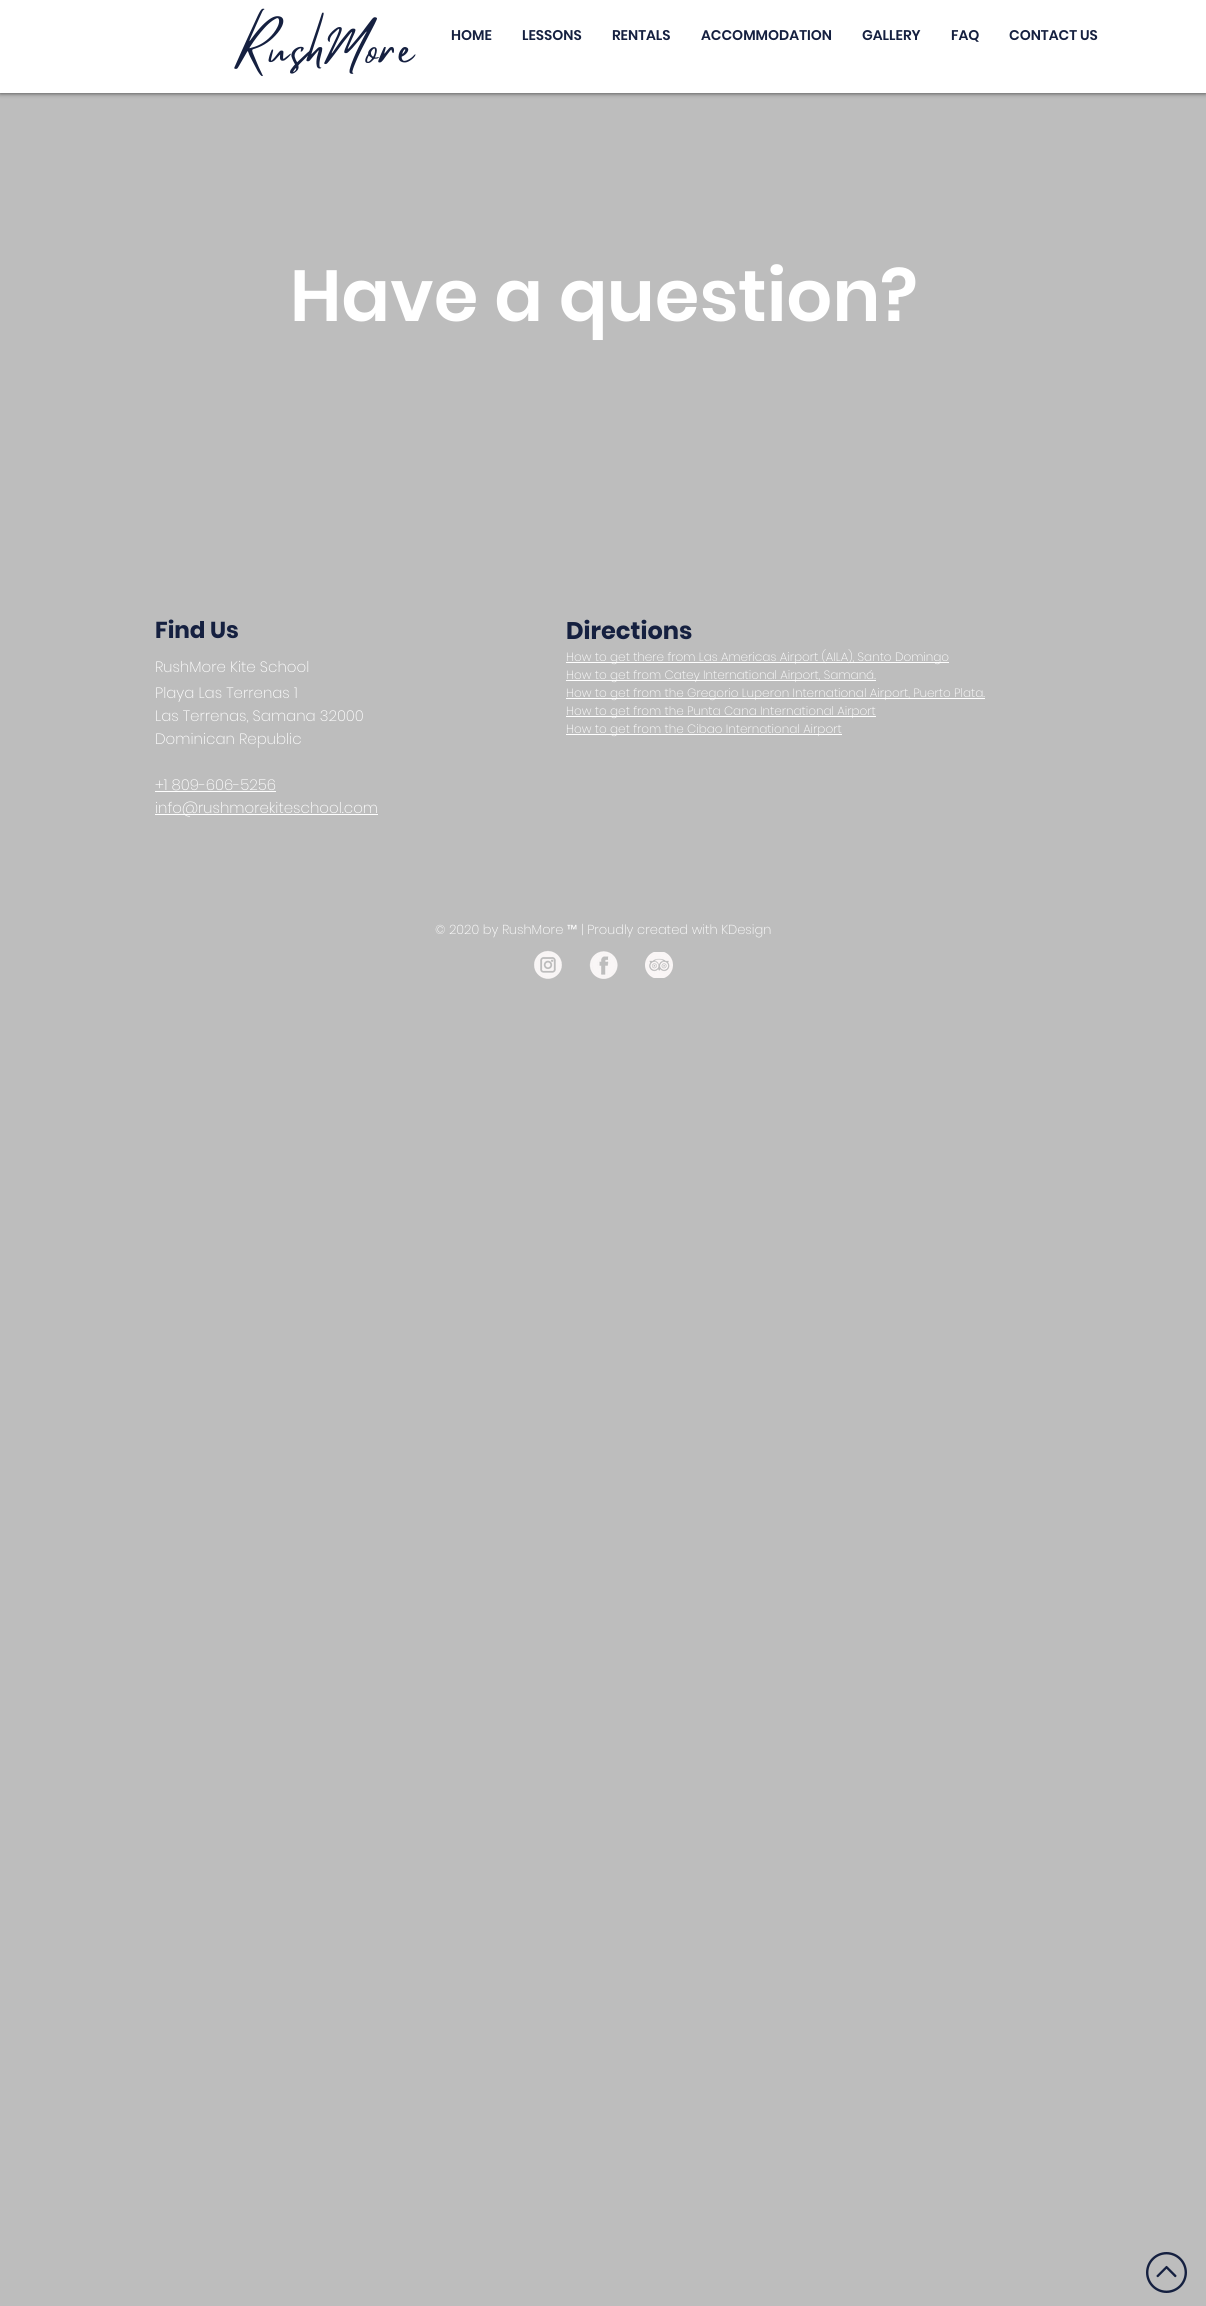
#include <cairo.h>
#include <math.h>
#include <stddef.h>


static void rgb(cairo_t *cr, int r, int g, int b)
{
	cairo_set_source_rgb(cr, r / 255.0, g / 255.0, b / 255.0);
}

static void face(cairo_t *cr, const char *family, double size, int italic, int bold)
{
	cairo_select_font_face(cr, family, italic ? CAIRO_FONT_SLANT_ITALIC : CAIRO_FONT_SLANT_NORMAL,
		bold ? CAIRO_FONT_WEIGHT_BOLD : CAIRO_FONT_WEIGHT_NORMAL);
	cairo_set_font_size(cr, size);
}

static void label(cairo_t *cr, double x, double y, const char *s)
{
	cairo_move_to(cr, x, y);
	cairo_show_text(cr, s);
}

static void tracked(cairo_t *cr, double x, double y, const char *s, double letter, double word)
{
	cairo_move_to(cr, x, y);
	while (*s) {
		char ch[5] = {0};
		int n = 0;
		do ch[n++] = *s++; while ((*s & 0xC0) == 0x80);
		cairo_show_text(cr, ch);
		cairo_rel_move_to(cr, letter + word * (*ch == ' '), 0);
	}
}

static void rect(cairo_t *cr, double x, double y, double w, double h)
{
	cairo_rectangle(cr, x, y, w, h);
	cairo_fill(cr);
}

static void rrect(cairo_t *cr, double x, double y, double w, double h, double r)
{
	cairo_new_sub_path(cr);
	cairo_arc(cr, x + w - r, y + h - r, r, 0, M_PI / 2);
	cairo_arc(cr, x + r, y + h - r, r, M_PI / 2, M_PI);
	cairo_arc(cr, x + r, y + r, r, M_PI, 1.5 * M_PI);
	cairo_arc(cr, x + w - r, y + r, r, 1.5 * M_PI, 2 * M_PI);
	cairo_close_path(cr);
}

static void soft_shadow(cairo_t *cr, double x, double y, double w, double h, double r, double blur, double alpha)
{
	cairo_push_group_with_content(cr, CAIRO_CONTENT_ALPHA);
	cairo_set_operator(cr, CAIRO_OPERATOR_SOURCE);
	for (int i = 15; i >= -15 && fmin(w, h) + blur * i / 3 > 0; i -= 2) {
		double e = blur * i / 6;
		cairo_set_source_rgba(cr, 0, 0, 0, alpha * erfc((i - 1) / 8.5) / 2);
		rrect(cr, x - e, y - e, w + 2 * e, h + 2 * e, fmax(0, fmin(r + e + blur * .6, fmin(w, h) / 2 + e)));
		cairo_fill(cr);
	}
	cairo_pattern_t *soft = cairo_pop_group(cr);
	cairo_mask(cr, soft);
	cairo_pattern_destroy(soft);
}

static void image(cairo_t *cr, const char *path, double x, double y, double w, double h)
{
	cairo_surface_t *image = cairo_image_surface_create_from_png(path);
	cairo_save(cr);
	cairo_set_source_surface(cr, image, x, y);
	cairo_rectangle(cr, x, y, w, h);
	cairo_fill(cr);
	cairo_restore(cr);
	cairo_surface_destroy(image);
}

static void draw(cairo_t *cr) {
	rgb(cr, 189, 189, 189);
	cairo_paint(cr);
	rgb(cr, 0, 0, 0);
	soft_shadow(cr, 0, 0, 1206, 93, 0, 2.5, 0.7);
	rgb(cr, 255, 255, 255);
	rect(cr, 0, 0, 1206, 93);
	face(cr, "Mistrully", 47, 0, 0);
	rgb(cr, 21, 32, 64);
	tracked(cr, 235, 62, "RushMore", 2.25, 0);
	face(cr, "Poppins SemiBold", 14, 0, 0);
	label(cr, 451, 40, "HOME");
	label(cr, 522, 40, "LESSONS");
	label(cr, 612, 40, "RENTALS");
	label(cr, 701, 40, "ACCOMMODATION");
	label(cr, 862, 40, "GALLERY");
	label(cr, 951, 40, "FAQ");
	label(cr, 1009, 40, "CONTACT US");
	face(cr, "Poppins SemiBold", 72, 0, 0);
	rgb(cr, 255, 255, 255);
	label(cr, 290, 321, "Have a question?");
	face(cr, "Poppins", 23, 0, 1);
	rgb(cr, 21, 32, 64);
	label(cr, 155, 638, "Find Us");
	face(cr, "Poppins ExtraLight", 15, 0, 0);
	rgb(cr, 255, 255, 255);
	label(cr, 155, 672, "RushMore Kite School");
	label(cr, 155, 698, "Playa Las Terrenas 1");
	label(cr, 155, 721, "Las Terrenas, Samana 32000");
	label(cr, 155, 744, "Dominican Republic");
	label(cr, 155, 790, "+1 809-606-5256");
	rect(cr, 155, 791, 121, 1);
	rect(cr, 155, 814, 223, 1);
	label(cr, 155, 813, "info@rushmorekiteschool.com");
	face(cr, "Poppins", 24, 0, 1);
	rgb(cr, 21, 32, 64);
	label(cr, 566, 639, "Directions");
	rgb(cr, 255, 255, 255);
	rect(cr, 566, 662, 383, 1);
	face(cr, "Poppins ExtraLight", 12, 0, 0);
	label(cr, 566, 661, "How to get there from Las Americas Airport (AILA), Santo Domingo");
	rect(cr, 566, 680, 310, 1);
	label(cr, 566, 679, "How to get from Catey International Airport, Samaná.");
	rect(cr, 566, 698, 419, 1);
	label(cr, 566, 697, "How to get from the Gregorio Luperon International Airport, Puerto Plata.");
	rect(cr, 566, 716, 310, 1);
	label(cr, 566, 715, "How to get from the Punta Cana International Airport");
	rect(cr, 566, 734, 276, 1);
	label(cr, 566, 733, "How to get from the Cibao International Airport");
	face(cr, "Poppins ExtraLight", 13, 0, 0);
	label(cr, 435, 934, "© 2020 by RushMore");
	face(cr, "Poppins", 13, 0, 0);
	label(cr, 567, 934, "™");
	face(cr, "Poppins ExtraLight", 13, 0, 0);
	label(cr, 581, 934, "| Proudly created with KDesign");
	image(cr, "image0.png", 534, 950, 28, 29);
	image(cr, "image1.png", 589, 951, 29, 28);
	image(cr, "image2.png", 645, 952, 28, 26);
	image(cr, "image3.png", 1146, 2252, 41, 41);
}

int main(void) {
	cairo_surface_t *surface = cairo_image_surface_create(CAIRO_FORMAT_RGB24, 1206, 2306);
	cairo_t *cr = cairo_create(surface);
	cairo_font_options_t *options = cairo_font_options_create();
	cairo_font_options_set_hint_metrics(options, CAIRO_HINT_METRICS_OFF);
	cairo_font_options_set_hint_style(options, CAIRO_HINT_STYLE_NONE);
	cairo_set_font_options(cr, options);
	cairo_set_miter_limit(cr, 4);
	draw(cr);
	cairo_surface_write_to_png(surface, "render.png");
	cairo_font_options_destroy(options);
	cairo_destroy(cr);
	cairo_surface_destroy(surface);
	return 0;
}
